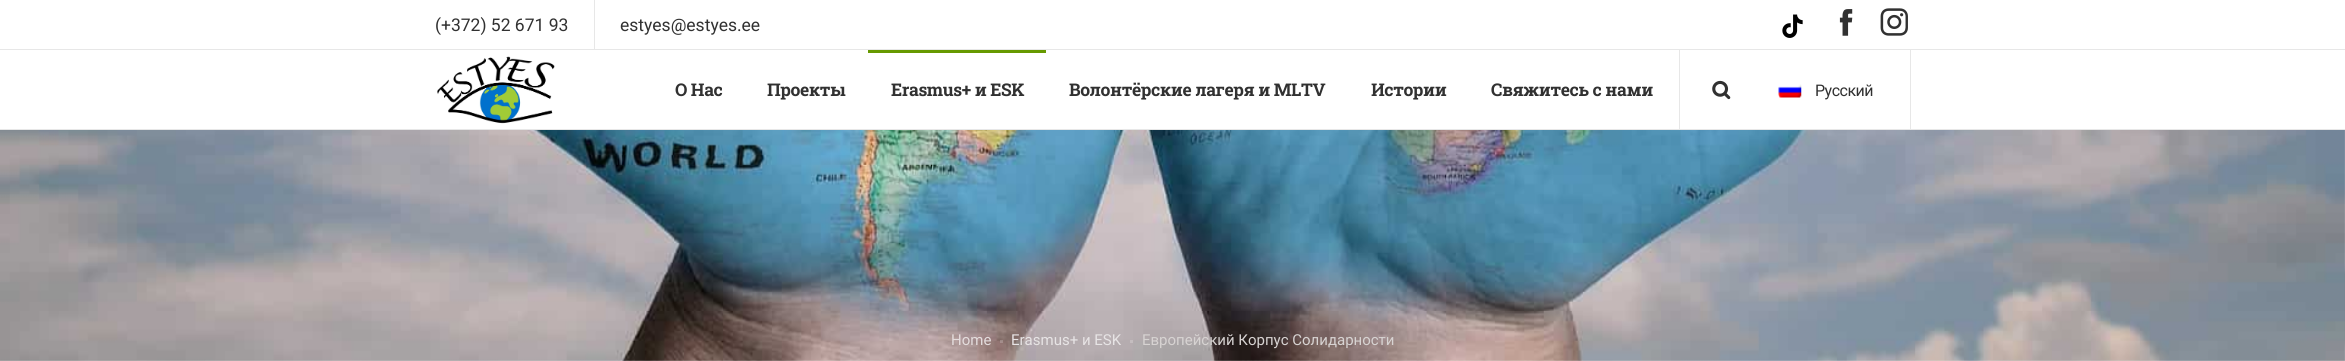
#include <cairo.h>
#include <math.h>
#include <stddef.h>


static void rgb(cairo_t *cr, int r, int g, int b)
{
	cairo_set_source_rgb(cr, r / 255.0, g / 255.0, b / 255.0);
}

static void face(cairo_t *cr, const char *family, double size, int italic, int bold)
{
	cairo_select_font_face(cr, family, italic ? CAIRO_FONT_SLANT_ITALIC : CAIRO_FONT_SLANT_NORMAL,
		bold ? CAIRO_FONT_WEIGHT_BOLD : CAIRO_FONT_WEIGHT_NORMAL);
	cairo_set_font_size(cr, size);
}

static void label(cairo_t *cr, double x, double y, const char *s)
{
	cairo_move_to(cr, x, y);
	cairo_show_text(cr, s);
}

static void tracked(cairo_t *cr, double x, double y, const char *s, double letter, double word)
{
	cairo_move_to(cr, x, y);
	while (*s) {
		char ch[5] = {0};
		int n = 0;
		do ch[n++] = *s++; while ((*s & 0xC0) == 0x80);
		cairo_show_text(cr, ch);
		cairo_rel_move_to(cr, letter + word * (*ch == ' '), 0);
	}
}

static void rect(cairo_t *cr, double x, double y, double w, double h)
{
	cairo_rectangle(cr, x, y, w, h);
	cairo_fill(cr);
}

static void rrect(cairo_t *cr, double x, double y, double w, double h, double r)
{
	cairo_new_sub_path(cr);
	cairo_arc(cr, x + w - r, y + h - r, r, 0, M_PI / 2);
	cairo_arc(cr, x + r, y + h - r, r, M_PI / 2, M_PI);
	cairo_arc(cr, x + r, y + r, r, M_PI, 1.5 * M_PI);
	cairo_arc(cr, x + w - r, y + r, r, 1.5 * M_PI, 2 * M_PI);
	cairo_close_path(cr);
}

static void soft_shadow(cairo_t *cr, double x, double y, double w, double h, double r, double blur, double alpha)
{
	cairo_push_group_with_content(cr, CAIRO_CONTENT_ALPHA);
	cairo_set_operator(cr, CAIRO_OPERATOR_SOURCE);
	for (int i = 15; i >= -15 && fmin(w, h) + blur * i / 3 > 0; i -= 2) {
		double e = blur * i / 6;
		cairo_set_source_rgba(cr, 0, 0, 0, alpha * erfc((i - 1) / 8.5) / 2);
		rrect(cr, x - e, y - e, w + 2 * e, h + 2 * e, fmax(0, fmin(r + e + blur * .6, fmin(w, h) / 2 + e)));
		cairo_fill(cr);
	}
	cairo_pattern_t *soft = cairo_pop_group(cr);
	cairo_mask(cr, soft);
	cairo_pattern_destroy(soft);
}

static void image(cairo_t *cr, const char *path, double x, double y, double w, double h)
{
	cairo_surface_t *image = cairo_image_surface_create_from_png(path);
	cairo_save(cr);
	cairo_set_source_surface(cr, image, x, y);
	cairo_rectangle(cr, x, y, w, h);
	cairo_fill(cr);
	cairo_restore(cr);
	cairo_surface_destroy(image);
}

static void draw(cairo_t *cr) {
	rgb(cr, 255, 255, 255);
	cairo_paint(cr);
	rgb(cr, 231, 231, 231);
	rect(cr, 0, 49, 2345, 1);
	face(cr, "Roboto", 17.5, 0, 0);
	rgb(cr, 49, 49, 49);
	label(cr, 435, 31, "(+372) 52 671 93");
	rgb(cr, 231, 231, 231);
	rect(cr, 594, 0, 1, 49);
	rgb(cr, 49, 49, 49);
	label(cr, 620, 31, "estyes@estyes.ee");
	image(cr, "image0.png", 1782, 14, 21, 24);
	image(cr, "image1.png", 1839, 9, 14, 27);
	image(cr, "image2.png", 1880, 8, 28, 28);
	rgb(cr, 231, 231, 231);
	rect(cr, 0, 129, 2345, 1);
	image(cr, "image3.png", 437, 56, 118, 68);
	face(cr, "Roboto Slab", 17.5, 0, 1);
	rgb(cr, 49, 49, 49);
	tracked(cr, 675, 96, "О Нас", -0.4, 0);
	tracked(cr, 767, 96, "Проекты", -0.4, 0);
	rgb(cr, 102, 153, 0);
	rect(cr, 868, 50, 178, 3);
	rgb(cr, 49, 49, 49);
	tracked(cr, 891, 96, "Erasmus+ и ESK", -0.4, 0);
	tracked(cr, 1069, 96, "Волонтёрские лагеря и MLTV", -0.4, 0);
	tracked(cr, 1371, 96, "Истории", -0.4, 0);
	tracked(cr, 1491, 96, "Свяжитесь с нами", -0.4, 0);
	rgb(cr, 231, 231, 231);
	rect(cr, 1679, 50, 1, 79);
	image(cr, "image4.png", 1712, 80, 19, 20);
	image(cr, "image5.png", 1778, 84, 24, 14);
	face(cr, "Roboto", 16, 0, 0);
	rgb(cr, 49, 49, 49);
	tracked(cr, 1815, 96, "Русский", -0.5, 0);
	rgb(cr, 231, 231, 231);
	rect(cr, 1910, 50, 1, 79);
	rgb(cr, 128, 128, 128);
	soft_shadow(cr, 2258, 269, 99, 75, 2.5, 3, 1);
	image(cr, "image6.png", 0, 130, 2345, 231);
	face(cr, "Roboto", 15, 0, 0);
	rgb(cr, 228, 221, 221);
	label(cr, 951, 345, "Home");
	cairo_set_source_rgba(cr, 1, 1, 1, 0.2);
	rect(cr, 1000, 340, 3, 3);
	rgb(cr, 231, 228, 229);
	label(cr, 1011, 345, "Erasmus+ и ESK");
	rgb(cr, 196, 189, 191);
	rect(cr, 1130, 340, 3, 3);
	rgb(cr, 215, 211, 210);
	label(cr, 1142, 345, "Европейский Корпус Солидарности");
}

int main(void) {
	cairo_surface_t *surface = cairo_image_surface_create(CAIRO_FORMAT_RGB24, 2345, 361);
	cairo_t *cr = cairo_create(surface);
	cairo_font_options_t *options = cairo_font_options_create();
	cairo_font_options_set_hint_metrics(options, CAIRO_HINT_METRICS_OFF);
	cairo_font_options_set_hint_style(options, CAIRO_HINT_STYLE_NONE);
	cairo_set_font_options(cr, options);
	cairo_set_miter_limit(cr, 4);
	draw(cr);
	cairo_surface_write_to_png(surface, "render.png");
	cairo_font_options_destroy(options);
	cairo_destroy(cr);
	cairo_surface_destroy(surface);
	return 0;
}
